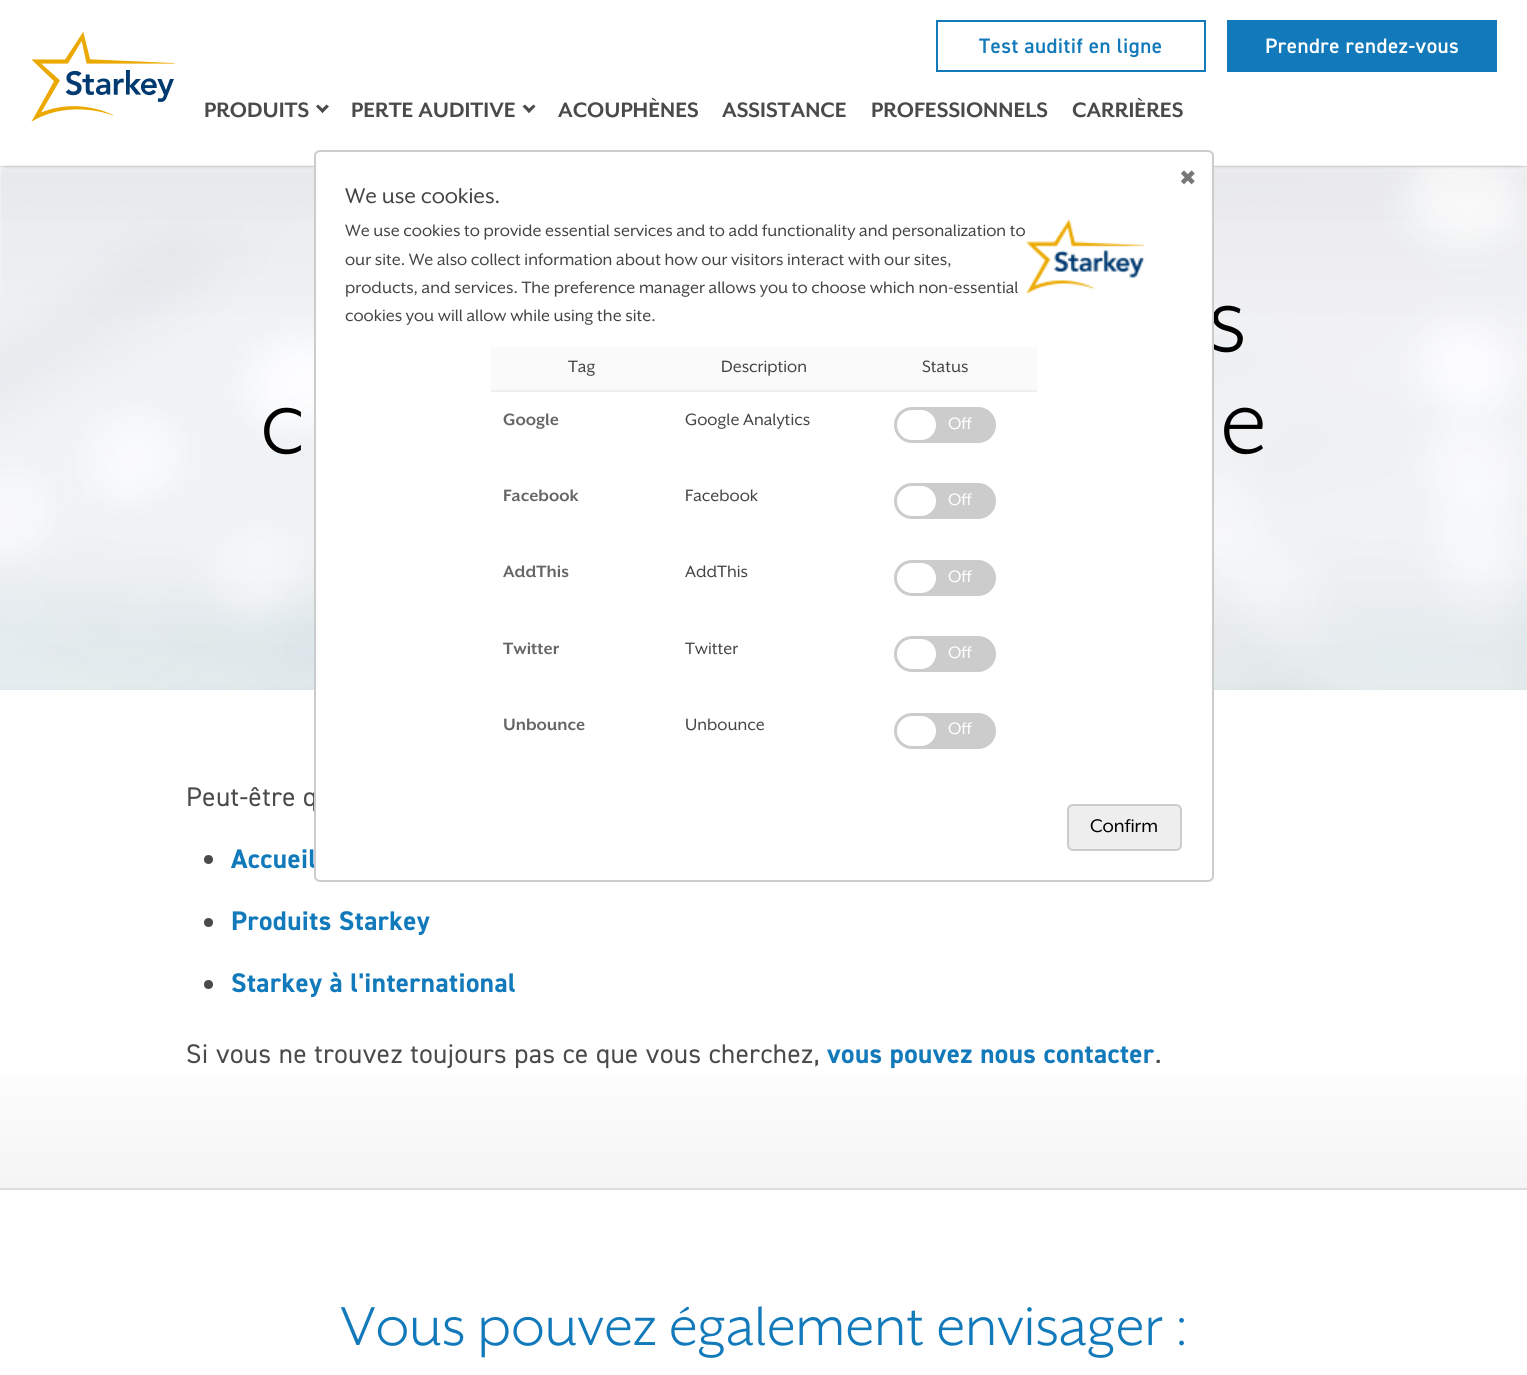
#include <cairo.h>
#include <math.h>
#include <stddef.h>


static void rgb(cairo_t *cr, int r, int g, int b)
{
	cairo_set_source_rgb(cr, r / 255.0, g / 255.0, b / 255.0);
}

static void face(cairo_t *cr, const char *family, double size, int italic, int bold)
{
	cairo_select_font_face(cr, family, italic ? CAIRO_FONT_SLANT_ITALIC : CAIRO_FONT_SLANT_NORMAL,
		bold ? CAIRO_FONT_WEIGHT_BOLD : CAIRO_FONT_WEIGHT_NORMAL);
	cairo_set_font_size(cr, size);
}

static void label(cairo_t *cr, double x, double y, const char *s)
{
	cairo_move_to(cr, x, y);
	cairo_show_text(cr, s);
}

static void tracked(cairo_t *cr, double x, double y, const char *s, double letter, double word)
{
	cairo_move_to(cr, x, y);
	while (*s) {
		char ch[5] = {0};
		int n = 0;
		do ch[n++] = *s++; while ((*s & 0xC0) == 0x80);
		cairo_show_text(cr, ch);
		cairo_rel_move_to(cr, letter + word * (*ch == ' '), 0);
	}
}

static void rect(cairo_t *cr, double x, double y, double w, double h)
{
	cairo_rectangle(cr, x, y, w, h);
	cairo_fill(cr);
}

static void rrect(cairo_t *cr, double x, double y, double w, double h, double r)
{
	cairo_new_sub_path(cr);
	cairo_arc(cr, x + w - r, y + h - r, r, 0, M_PI / 2);
	cairo_arc(cr, x + r, y + h - r, r, M_PI / 2, M_PI);
	cairo_arc(cr, x + r, y + r, r, M_PI, 1.5 * M_PI);
	cairo_arc(cr, x + w - r, y + r, r, 1.5 * M_PI, 2 * M_PI);
	cairo_close_path(cr);
}

static void soft_shadow(cairo_t *cr, double x, double y, double w, double h, double r, double blur, double alpha)
{
	cairo_push_group_with_content(cr, CAIRO_CONTENT_ALPHA);
	cairo_set_operator(cr, CAIRO_OPERATOR_SOURCE);
	for (int i = 15; i >= -15 && fmin(w, h) + blur * i / 3 > 0; i -= 2) {
		double e = blur * i / 6;
		cairo_set_source_rgba(cr, 0, 0, 0, alpha * erfc((i - 1) / 8.5) / 2);
		rrect(cr, x - e, y - e, w + 2 * e, h + 2 * e, fmax(0, fmin(r + e + blur * .6, fmin(w, h) / 2 + e)));
		cairo_fill(cr);
	}
	cairo_pattern_t *soft = cairo_pop_group(cr);
	cairo_mask(cr, soft);
	cairo_pattern_destroy(soft);
}

static void image(cairo_t *cr, const char *path, double x, double y, double w, double h)
{
	cairo_surface_t *image = cairo_image_surface_create_from_png(path);
	cairo_save(cr);
	cairo_set_source_surface(cr, image, x, y);
	cairo_rectangle(cr, x, y, w, h);
	cairo_fill(cr);
	cairo_restore(cr);
	cairo_surface_destroy(image);
}

static void draw(cairo_t *cr) {
	cairo_pattern_t *gradient;
	rgb(cr, 255, 255, 255);
	cairo_paint(cr);
	image(cr, "image2.png", 0, 165, 1527, 525);
	cairo_save(cr);
	cairo_rectangle(cr, 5, 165, 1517, 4);
	cairo_clip(cr);
	rgb(cr, 0, 0, 0);
	soft_shadow(cr, 6, 12, 1515, 153, 0, 4.5, 0.1);
	cairo_restore(cr);
	cairo_rectangle(cr, 937, 21, 268, 50);
	rgb(cr, 18, 122, 186);
	cairo_stroke(cr);
	face(cr, "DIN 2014 SemiBold", 21, 0, 0);
	tracked(cr, 979, 53, "Test auditif en ligne", 0.45, 0);
	rect(cr, 1227, 20, 270, 52);
	rgb(cr, 255, 255, 255);
	tracked(cr, 1265, 53, "Prendre rendez-vous", 0.45, 0);
	image(cr, "image0.png", 31, 32, 144, 90);
	face(cr, "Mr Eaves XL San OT", 24, 0, 1);
	rgb(cr, 74, 74, 74);
	label(cr, 204, 117, "PRODUITS");
	cairo_new_path(cr);
	cairo_move_to(cr, 326.5, 104.5);
	cairo_line_to(cr, 329, 106.5);
	cairo_line_to(cr, 322.5, 113);
	cairo_line_to(cr, 320.5, 110.5);
	cairo_close_path(cr);
	cairo_fill(cr);
	cairo_new_path(cr);
	cairo_move_to(cr, 318, 104.5);
	cairo_line_to(cr, 324.5, 110.5);
	cairo_line_to(cr, 322.5, 113);
	cairo_line_to(cr, 316, 106.5);
	cairo_close_path(cr);
	cairo_fill(cr);
	label(cr, 351, 117, "PERTE AUDITIVE");
	cairo_new_path(cr);
	cairo_move_to(cr, 533.5, 104.5);
	cairo_line_to(cr, 535.5, 106.5);
	cairo_line_to(cr, 529, 113);
	cairo_line_to(cr, 527, 110.5);
	cairo_close_path(cr);
	cairo_fill(cr);
	cairo_new_path(cr);
	cairo_move_to(cr, 525, 104.5);
	cairo_line_to(cr, 531, 110.5);
	cairo_line_to(cr, 529, 113);
	cairo_line_to(cr, 522.5, 106.5);
	cairo_close_path(cr);
	cairo_fill(cr);
	label(cr, 558, 117, "ACOUPHÈNES");
	label(cr, 722, 117, "ASSISTANCE");
	label(cr, 871, 117, "PROFESSIONNELS");
	label(cr, 1072, 117, "CARRIÈRES");
	face(cr, "Mr Eaves XL San OT Light", 102, 0, 0);
	rgb(cr, 0, 0, 0);
	label(cr, 1208, 351, "s");
	face(cr, "DIN 2014", 27, 0, 0);
	rgb(cr, 74, 74, 74);
	tracked(cr, 186, 806, "Peut-être q", 0.45, 0);
	face(cr, "DIN 2014", 27, 0, 1);
	rgb(cr, 18, 122, 186);
	tracked(cr, 231, 868, "Accueil", 0.45, 0);
	rgb(cr, 255, 255, 255);
	rrect(cr, 315, 151, 898, 730, 5);
	cairo_fill_preserve(cr);
	rgb(cr, 204, 204, 204);
	cairo_stroke(cr);
	face(cr, "DejaVu Sans", 21, 0, 0);
	rgb(cr, 119, 119, 119);
	label(cr, 1179, 185, "✖");
	face(cr, "Mr Eaves XL San OT", 24.5, 0, 0);
	rgb(cr, 68, 68, 68);
	label(cr, 345, 203, "We use cookies.");
	face(cr, "Mr Eaves XL San OT", 18.9, 0, 0);
	label(cr, 345, 236, "We use cookies to provide essential services and to add functionality and personalization to");
	label(cr, 345, 265, "our site. We also collect information about how our visitors interact with our sites,");
	label(cr, 345, 293, "products, and services. The preference manager allows you to choose which non-essential");
	label(cr, 345, 321, "cookies you will allow while using the site.");
	image(cr, "image1.png", 1026, 219, 119, 75);
	rgb(cr, 250, 250, 250);
	rect(cr, 491, 347, 546, 43);
	rgb(cr, 68, 68, 68);
	label(cr, 568, 372, "Tag");
	label(cr, 721, 372, "Description");
	rgb(cr, 238, 238, 238);
	rect(cr, 491, 390, 546, 2);
	rgb(cr, 68, 68, 68);
	label(cr, 922, 372, "Status");
	face(cr, "Mr Eaves XL San OT", 18.9, 0, 1);
	rgb(cr, 102, 102, 102);
	label(cr, 503, 425, "Google");
	face(cr, "Mr Eaves XL San OT", 18.9, 0, 0);
	rgb(cr, 68, 68, 68);
	label(cr, 685, 425, "Google Analytics");
	rgb(cr, 204, 204, 204);
	rrect(cr, 894, 407, 102, 36, 18);
	cairo_fill(cr);
	rgb(cr, 255, 255, 255);
	rrect(cr, 897, 410, 39, 30, 15);
	cairo_fill(cr);
	label(cr, 948, 429, "Off");
	face(cr, "Mr Eaves XL San OT", 18.9, 0, 1);
	rgb(cr, 102, 102, 102);
	label(cr, 503, 501, "Facebook");
	face(cr, "Mr Eaves XL San OT", 18.9, 0, 0);
	rgb(cr, 68, 68, 68);
	label(cr, 685, 501, "Facebook");
	rgb(cr, 204, 204, 204);
	rrect(cr, 894, 483, 102, 36, 18);
	cairo_fill(cr);
	rgb(cr, 255, 255, 255);
	rrect(cr, 897, 486, 39, 30, 15);
	cairo_fill(cr);
	label(cr, 948, 505, "Off");
	face(cr, "Mr Eaves XL San OT", 18.9, 0, 1);
	rgb(cr, 102, 102, 102);
	label(cr, 503, 577, "AddThis");
	face(cr, "Mr Eaves XL San OT", 18.9, 0, 0);
	rgb(cr, 68, 68, 68);
	label(cr, 685, 577, "AddThis");
	rgb(cr, 204, 204, 204);
	rrect(cr, 894, 560, 102, 36, 18);
	cairo_fill(cr);
	rgb(cr, 255, 255, 255);
	rrect(cr, 897, 563, 39, 30, 15);
	cairo_fill(cr);
	label(cr, 948, 582, "Off");
	face(cr, "Mr Eaves XL San OT", 18.9, 0, 1);
	rgb(cr, 102, 102, 102);
	label(cr, 503, 654, "Twitter");
	face(cr, "Mr Eaves XL San OT", 18.9, 0, 0);
	rgb(cr, 68, 68, 68);
	label(cr, 685, 654, "Twitter");
	rgb(cr, 204, 204, 204);
	rrect(cr, 894, 636, 102, 36, 18);
	cairo_fill(cr);
	rgb(cr, 255, 255, 255);
	rrect(cr, 897, 639, 39, 30, 15);
	cairo_fill(cr);
	label(cr, 948, 658, "Off");
	face(cr, "Mr Eaves XL San OT", 18.9, 0, 1);
	rgb(cr, 102, 102, 102);
	label(cr, 503, 730, "Unbounce");
	face(cr, "Mr Eaves XL San OT", 18.9, 0, 0);
	rgb(cr, 68, 68, 68);
	label(cr, 685, 730, "Unbounce");
	rgb(cr, 204, 204, 204);
	rrect(cr, 894, 713, 102, 36, 18);
	cairo_fill(cr);
	rgb(cr, 255, 255, 255);
	rrect(cr, 897, 716, 39, 30, 15);
	cairo_fill(cr);
	label(cr, 948, 734, "Off");
	rgb(cr, 238, 238, 238);
	rrect(cr, 1068, 805, 113, 45, 5);
	cairo_fill_preserve(cr);
	rgb(cr, 204, 204, 204);
	cairo_stroke(cr);
	face(cr, "Mr Eaves XL San OT", 21, 0, 0);
	rgb(cr, 0, 0, 0);
	label(cr, 1090, 832, "Confirm");
	face(cr, "Mr Eaves XL San OT Light", 102, 0, 0);
	label(cr, 260, 453, "c");
	label(cr, 1220, 453, "e");
	rgb(cr, 74, 74, 74);
	cairo_new_path(cr);
	cairo_arc(cr, 208.5, 859.5, 4.5, 0, 2 * M_PI);
	cairo_fill(cr);
	cairo_arc(cr, 208.5, 922.5, 4.5, 0, 2 * M_PI);
	cairo_fill(cr);
	face(cr, "DIN 2014", 27, 0, 1);
	rgb(cr, 18, 122, 186);
	tracked(cr, 231, 930, "Produits Starkey", 0.45, 0);
	rgb(cr, 74, 74, 74);
	cairo_new_path(cr);
	cairo_arc(cr, 208.5, 984.5, 4.5, 0, 2 * M_PI);
	cairo_fill(cr);
	rgb(cr, 18, 122, 186);
	tracked(cr, 231, 992, "Starkey à l'international", 0.45, 0);
	face(cr, "DIN 2014", 27, 0, 0);
	rgb(cr, 74, 74, 74);
	tracked(cr, 186, 1063, "Si vous ne trouvez toujours pas ce que vous cherchez,", 0.45, 0);
	face(cr, "DIN 2014", 27, 0, 1);
	rgb(cr, 18, 122, 186);
	tracked(cr, 827, 1063, "vous pouvez nous contacter", 0.45, 0);
	face(cr, "DIN 2014", 27, 0, 0);
	rgb(cr, 74, 74, 74);
	tracked(cr, 1155, 1063, ".", 0.45, 0);
	gradient = cairo_pattern_create_linear(764, 1039, 764, 1188);
	cairo_pattern_add_color_stop_rgba(gradient, 0, 1, 1, 1, 1);
	cairo_pattern_add_color_stop_rgba(gradient, 1, 0.961, 0.961, 0.961, 1);
	cairo_set_source(cr, gradient);
	cairo_pattern_destroy(gradient);
	rect(cr, 0, 1076, 1527, 112);
	rgb(cr, 221, 221, 221);
	rect(cr, 0, 1188, 1527, 2);
	face(cr, "Mr Eaves XL San OT Light", 63, 0, 0);
	rgb(cr, 18, 122, 186);
	label(cr, 340, 1345, "Vous pouvez également envisager :");
}

int main(void) {
	cairo_surface_t *surface = cairo_image_surface_create(CAIRO_FORMAT_RGB24, 1527, 1375);
	cairo_t *cr = cairo_create(surface);
	cairo_font_options_t *options = cairo_font_options_create();
	cairo_font_options_set_hint_metrics(options, CAIRO_HINT_METRICS_OFF);
	cairo_font_options_set_hint_style(options, CAIRO_HINT_STYLE_NONE);
	cairo_set_font_options(cr, options);
	cairo_set_miter_limit(cr, 4);
	draw(cr);
	cairo_surface_write_to_png(surface, "render.png");
	cairo_font_options_destroy(options);
	cairo_destroy(cr);
	cairo_surface_destroy(surface);
	return 0;
}
